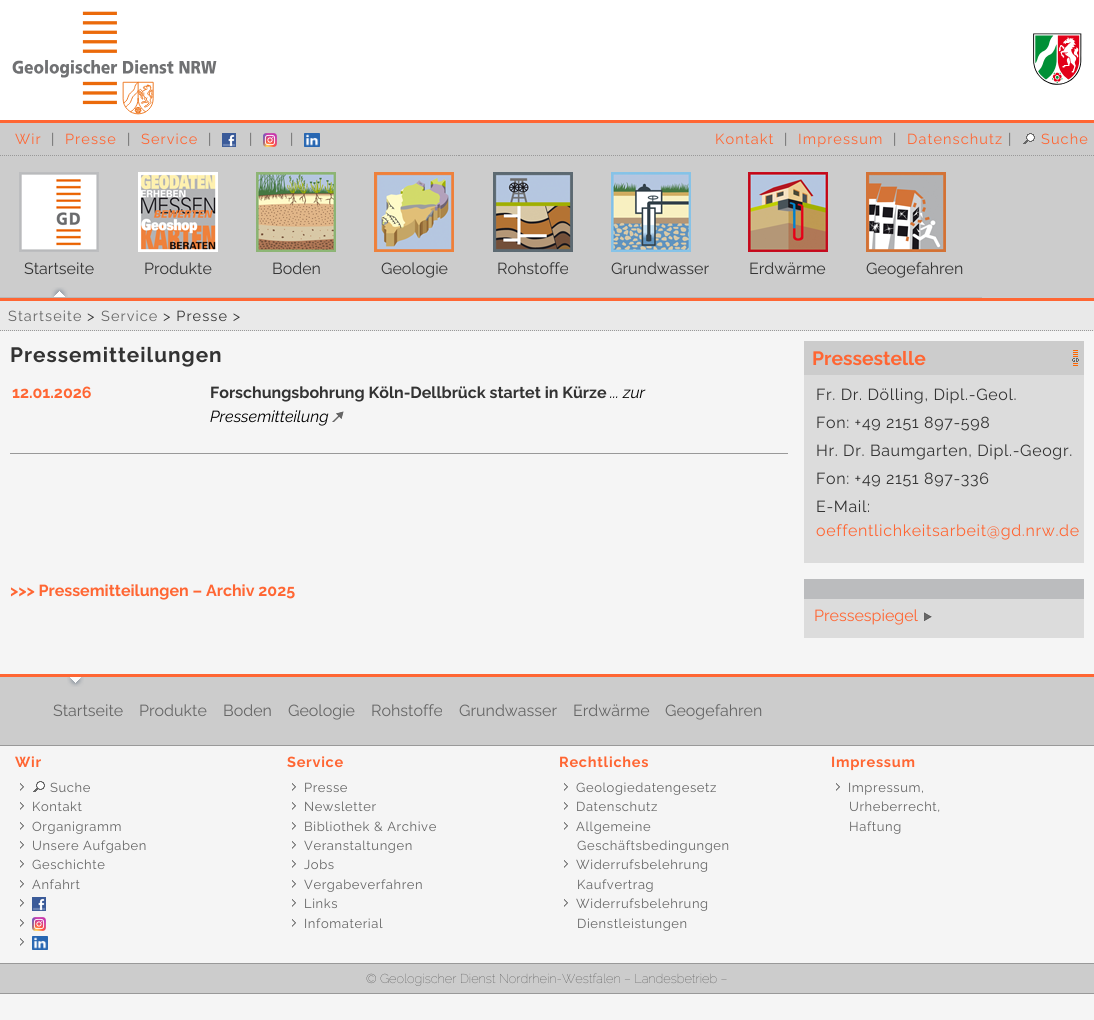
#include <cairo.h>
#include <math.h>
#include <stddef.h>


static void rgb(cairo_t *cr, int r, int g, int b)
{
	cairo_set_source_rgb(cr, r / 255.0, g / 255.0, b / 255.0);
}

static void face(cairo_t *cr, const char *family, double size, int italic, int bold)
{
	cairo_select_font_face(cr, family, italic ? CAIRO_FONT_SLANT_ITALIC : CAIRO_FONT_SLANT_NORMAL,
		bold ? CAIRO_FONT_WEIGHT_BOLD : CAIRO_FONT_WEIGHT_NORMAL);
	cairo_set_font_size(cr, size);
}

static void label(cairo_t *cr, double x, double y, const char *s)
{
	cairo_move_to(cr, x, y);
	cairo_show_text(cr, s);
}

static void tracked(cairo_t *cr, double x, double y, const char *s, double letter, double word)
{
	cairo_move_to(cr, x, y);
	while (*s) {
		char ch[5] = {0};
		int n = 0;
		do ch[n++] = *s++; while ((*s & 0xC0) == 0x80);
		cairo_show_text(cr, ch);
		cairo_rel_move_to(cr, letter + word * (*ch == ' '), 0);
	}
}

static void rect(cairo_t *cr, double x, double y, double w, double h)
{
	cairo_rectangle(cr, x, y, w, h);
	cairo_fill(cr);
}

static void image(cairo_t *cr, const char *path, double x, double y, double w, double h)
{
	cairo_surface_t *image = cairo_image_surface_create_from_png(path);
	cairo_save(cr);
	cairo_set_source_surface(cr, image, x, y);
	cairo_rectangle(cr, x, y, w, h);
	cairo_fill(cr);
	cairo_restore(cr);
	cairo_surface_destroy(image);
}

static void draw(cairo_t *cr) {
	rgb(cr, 245, 245, 245);
	cairo_paint(cr);
	rgb(cr, 255, 255, 255);
	rect(cr, 0, 0, 1094, 120);
	image(cr, "image0.png", 12, 11, 205, 104);
	image(cr, "image1.png", 1033, 33, 49, 52);
	rgb(cr, 204, 204, 204);
	rect(cr, 0, 123, 1094, 175);
	rgb(cr, 255, 102, 51);
	rect(cr, 0, 120, 1094, 3);
	cairo_new_path(cr);
	cairo_move_to(cr, 0, 155.5);
	cairo_line_to(cr, 459, 155.5);
	rgb(cr, 153, 153, 153);
	cairo_set_line_width(cr, 1);
	cairo_set_dash(cr, (double[]){1, 1}, 2, 0);
	cairo_stroke(cr);
	face(cr, "Raleway", 14.5, 0, 0);
	rgb(cr, 255, 102, 51);
	tracked(cr, 15, 144, "Wir", 1.1, 0);
	rgb(cr, 102, 102, 102);
	tracked(cr, 51, 144, "|", 1.1, 0);
	rgb(cr, 255, 102, 51);
	tracked(cr, 65, 144, "Presse", 1.1, 0);
	rgb(cr, 102, 102, 102);
	tracked(cr, 127, 144, "|", 1.1, 0);
	rgb(cr, 255, 102, 51);
	tracked(cr, 141, 144, "Service", 1.1, 0);
	rgb(cr, 102, 102, 102);
	tracked(cr, 208, 144, "|", 1.1, 0);
	image(cr, "image2.png", 222, 133, 14, 14);
	tracked(cr, 249, 144, "|", 1.1, 0);
	image(cr, "image3.png", 263, 133, 14, 14);
	tracked(cr, 290, 144, "|", 1.1, 0);
	image(cr, "image4.png", 304, 133, 16, 14);
	cairo_new_path(cr);
	cairo_move_to(cr, 459, 155.5);
	cairo_line_to(cr, 1094, 155.5);
	rgb(cr, 153, 153, 153);
	cairo_stroke(cr);
	rgb(cr, 255, 102, 51);
	tracked(cr, 715, 144, "Kontakt", 1.1, 0);
	rgb(cr, 102, 102, 102);
	tracked(cr, 784, 144, "|", 1.1, 0);
	rgb(cr, 255, 102, 51);
	tracked(cr, 798, 144, "Impressum", 1.1, 0);
	rgb(cr, 102, 102, 102);
	tracked(cr, 893, 144, "|", 1.1, 0);
	rgb(cr, 255, 102, 51);
	tracked(cr, 907, 144, "Datenschutz", 1.1, 0);
	rgb(cr, 102, 102, 102);
	tracked(cr, 1008, 144, "|", 1.1, 0);
	image(cr, "image5.png", 1023, 133, 12, 11);
	rgb(cr, 255, 102, 51);
	tracked(cr, 1041, 144, "Suche", 1.1, 0);
	rgb(cr, 184, 184, 184);
	rect(cr, 0, 297, 982, 1);
	image(cr, "image6.png", 51, 287, 17, 10);
	image(cr, "image7.png", 19, 172, 80, 80);
	face(cr, "Raleway", 16, 0, 0);
	rgb(cr, 51, 51, 51);
	label(cr, 24, 274, "Startseite");
	image(cr, "image8.png", 138, 172, 80, 80);
	label(cr, 144, 274, "Produkte");
	image(cr, "image9.png", 256, 172, 80, 80);
	label(cr, 272, 274, "Boden");
	image(cr, "image10.png", 374, 172, 80, 80);
	label(cr, 381, 274, "Geologie");
	image(cr, "image11.png", 493, 172, 80, 80);
	label(cr, 497, 274, "Rohstoffe");
	image(cr, "image12.png", 611, 172, 80, 80);
	label(cr, 611, 274, "Grundwasser");
	image(cr, "image13.png", 748, 172, 80, 80);
	label(cr, 749, 274, "Erdwärme");
	image(cr, "image14.png", 866, 172, 80, 80);
	label(cr, 866, 274, "Geogefahren");
	rgb(cr, 233, 233, 233);
	rect(cr, 0, 301, 1094, 30);
	rgb(cr, 255, 102, 51);
	rect(cr, 0, 298, 1094, 3);
	cairo_new_path(cr);
	cairo_move_to(cr, 0, 330.5);
	cairo_line_to(cr, 1094, 330.5);
	rgb(cr, 153, 153, 153);
	cairo_stroke(cr);
	face(cr, "Raleway", 14.5, 0, 0);
	rgb(cr, 102, 102, 102);
	tracked(cr, 8, 321, "Startseite", 1.1, 0);
	rgb(cr, 51, 51, 51);
	tracked(cr, 87, 321, ">", 1.1, 0);
	rgb(cr, 102, 102, 102);
	tracked(cr, 101, 321, "Service", 1.1, 0);
	rgb(cr, 51, 51, 51);
	tracked(cr, 163, 321, "> Presse >", 1.1, 0);
	face(cr, "Raleway", 20.75, 0, 1);
	tracked(cr, 10, 362, "Pressemitteilungen", 1, 0);
	face(cr, "Raleway", 16, 0, 1);
	rgb(cr, 255, 102, 51);
	label(cr, 12, 398, "12.01.2026");
	rgb(cr, 51, 51, 51);
	label(cr, 210, 398, "Forschungsbohrung Köln-Dellbrück startet in Kürze");
	face(cr, "Raleway", 16, 1, 0);
	rgb(cr, 0, 0, 0);
	label(cr, 610, 398, "... zur");
	label(cr, 210, 422, "Pressemitteilung");
	image(cr, "image15.png", 332, 411, 12, 11);
	rgb(cr, 153, 153, 153);
	rect(cr, 10, 453, 778, 1);
	rgb(cr, 220, 220, 220);
	rect(cr, 804, 375, 280, 188);
	rgb(cr, 204, 204, 204);
	rect(cr, 804, 341, 280, 34);
	image(cr, "image16.png", 1072, 350, 7, 16);
	face(cr, "Raleway", 19.25, 0, 1);
	rgb(cr, 255, 102, 51);
	label(cr, 812, 365, "Pressestelle");
	face(cr, "Raleway", 16, 0, 0);
	rgb(cr, 51, 51, 51);
	tracked(cr, 816, 400, "Fr. Dr. Dölling, Dipl.-Geol.", 0.65, 0);
	tracked(cr, 816, 428, "Fon: +49 2151 897-598", 0.65, 0);
	tracked(cr, 816, 456, "Hr. Dr. Baumgarten, Dipl.-Geogr.", 0.65, 0);
	tracked(cr, 816, 484, "Fon: +49 2151 897-336", 0.65, 0);
	tracked(cr, 816, 512, "E-Mail:", 0.65, 0);
	rgb(cr, 255, 102, 51);
	tracked(cr, 816, 536, "oeffentlichkeitsarbeit@gd.nrw.de", 0.65, 0);
	face(cr, "Raleway", 16, 0, 1);
	label(cr, 10, 596, ">>> Pressemitteilungen – Archiv 2025");
	rgb(cr, 220, 220, 220);
	rect(cr, 804, 599, 280, 39);
	rgb(cr, 187, 188, 190);
	rect(cr, 804, 579, 280, 20);
	face(cr, "Raleway", 16, 0, 0);
	rgb(cr, 255, 102, 51);
	label(cr, 814, 621, "Pressespiegel");
	image(cr, "image17.png", 924, 612, 8, 9);
	rect(cr, 0, 674, 1094, 3);
	rgb(cr, 204, 204, 204);
	rect(cr, 0, 677, 1094, 68);
	rgb(cr, 153, 153, 153);
	rect(cr, 0, 745, 1094, 1);
	image(cr, "image18.png", 67, 677, 17, 10);
	rgb(cr, 102, 102, 102);
	label(cr, 53, 716, "Startseite");
	label(cr, 139, 716, "Produkte");
	label(cr, 223, 716, "Boden");
	label(cr, 288, 716, "Geologie");
	label(cr, 371, 716, "Rohstoffe");
	label(cr, 459, 716, "Grundwasser");
	label(cr, 573, 716, "Erdwärme");
	label(cr, 665, 716, "Geogefahren");
	face(cr, "Raleway", 14.5, 0, 1);
	rgb(cr, 255, 102, 51);
	tracked(cr, 15, 767, "Wir", 0.75, 0);
	image(cr, "image19.png", 20, 783, 4, 8);
	image(cr, "image20.png", 33, 781, 12, 11);
	face(cr, "Raleway", 13, 0, 0);
	rgb(cr, 102, 102, 102);
	tracked(cr, 50, 792, "Suche", 0.6, 0);
	image(cr, "image19.png", 20, 802, 4, 8);
	tracked(cr, 32, 811, "Kontakt", 0.6, 0);
	image(cr, "image19.png", 20, 822, 4, 8);
	tracked(cr, 32, 831, "Organigramm", 0.6, 0);
	image(cr, "image19.png", 20, 841, 4, 8);
	tracked(cr, 32, 850, "Unsere Aufgaben", 0.6, 0);
	image(cr, "image19.png", 20, 860, 4, 8);
	tracked(cr, 32, 869, "Geschichte", 0.6, 0);
	image(cr, "image19.png", 20, 880, 4, 8);
	tracked(cr, 32, 889, "Anfahrt", 0.6, 0);
	image(cr, "image19.png", 20, 899, 4, 8);
	image(cr, "image21.png", 32, 897, 14, 14);
	image(cr, "image19.png", 20, 919, 4, 8);
	image(cr, "image22.png", 32, 917, 14, 14);
	image(cr, "image19.png", 20, 938, 4, 8);
	image(cr, "image23.png", 32, 936, 16, 14);
	face(cr, "Raleway", 14.5, 0, 1);
	rgb(cr, 255, 102, 51);
	tracked(cr, 287, 767, "Service", 0.75, 0);
	image(cr, "image19.png", 292, 783, 4, 8);
	face(cr, "Raleway", 13, 0, 0);
	rgb(cr, 102, 102, 102);
	tracked(cr, 304, 792, "Presse", 0.6, 0);
	image(cr, "image19.png", 292, 802, 4, 8);
	tracked(cr, 304, 811, "Newsletter", 0.6, 0);
	image(cr, "image19.png", 292, 822, 4, 8);
	tracked(cr, 304, 831, "Bibliothek & Archive", 0.6, 0);
	image(cr, "image19.png", 292, 841, 4, 8);
	tracked(cr, 304, 850, "Veranstaltungen", 0.6, 0);
	image(cr, "image19.png", 292, 860, 4, 8);
	tracked(cr, 304, 869, "Jobs", 0.6, 0);
	image(cr, "image19.png", 292, 880, 4, 8);
	tracked(cr, 304, 889, "Vergabeverfahren", 0.6, 0);
	image(cr, "image19.png", 292, 899, 4, 8);
	tracked(cr, 304, 908, "Links", 0.6, 0);
	image(cr, "image19.png", 292, 919, 4, 8);
	tracked(cr, 304, 928, "Infomaterial", 0.6, 0);
	face(cr, "Raleway", 14.5, 0, 1);
	rgb(cr, 255, 102, 51);
	tracked(cr, 559, 767, "Rechtliches", 0.75, 0);
	image(cr, "image19.png", 564, 783, 4, 8);
	face(cr, "Raleway", 13, 0, 0);
	rgb(cr, 102, 102, 102);
	tracked(cr, 576, 792, "Geologiedatengesetz", 0.6, 0);
	image(cr, "image19.png", 564, 802, 4, 8);
	tracked(cr, 576, 811, "Datenschutz", 0.6, 0);
	image(cr, "image19.png", 564, 822, 4, 8);
	tracked(cr, 576, 831, "Allgemeine", 0.6, 0);
	tracked(cr, 577, 850, "Geschäftsbedingungen", 0.6, 0);
	image(cr, "image19.png", 564, 860, 4, 8);
	tracked(cr, 576, 869, "Widerrufsbelehrung", 0.6, 0);
	tracked(cr, 577, 889, "Kaufvertrag", 0.6, 0);
	image(cr, "image19.png", 564, 899, 4, 8);
	tracked(cr, 576, 908, "Widerrufsbelehrung", 0.6, 0);
	tracked(cr, 577, 928, "Dienstleistungen", 0.6, 0);
	face(cr, "Raleway", 14.5, 0, 1);
	rgb(cr, 255, 102, 51);
	tracked(cr, 831, 767, "Impressum", 0.75, 0);
	image(cr, "image19.png", 836, 783, 4, 8);
	face(cr, "Raleway", 13, 0, 0);
	rgb(cr, 102, 102, 102);
	tracked(cr, 848, 792, "Impressum,", 0.6, 0);
	tracked(cr, 849, 811, "Urheberrecht,", 0.6, 0);
	tracked(cr, 849, 831, "Haftung", 0.6, 0);
	rgb(cr, 204, 204, 204);
	rect(cr, 0, 964, 1094, 29);
	rgb(cr, 153, 153, 153);
	rect(cr, 0, 963, 1094, 1);
	rect(cr, 0, 993, 1094, 1);
	face(cr, "Raleway Thin", 12.8, 0, 0);
	rgb(cr, 51, 51, 51);
	label(cr, 366, 983, "© Geologischer Dienst Nordrhein-Westfalen – Landesbetrieb –");
}

int main(void) {
	cairo_surface_t *surface = cairo_image_surface_create(CAIRO_FORMAT_RGB24, 1094, 1020);
	cairo_t *cr = cairo_create(surface);
	cairo_font_options_t *options = cairo_font_options_create();
	cairo_font_options_set_hint_metrics(options, CAIRO_HINT_METRICS_OFF);
	cairo_font_options_set_hint_style(options, CAIRO_HINT_STYLE_NONE);
	cairo_set_font_options(cr, options);
	cairo_set_miter_limit(cr, 4);
	draw(cr);
	cairo_surface_write_to_png(surface, "render.png");
	cairo_font_options_destroy(options);
	cairo_destroy(cr);
	cairo_surface_destroy(surface);
	return 0;
}
